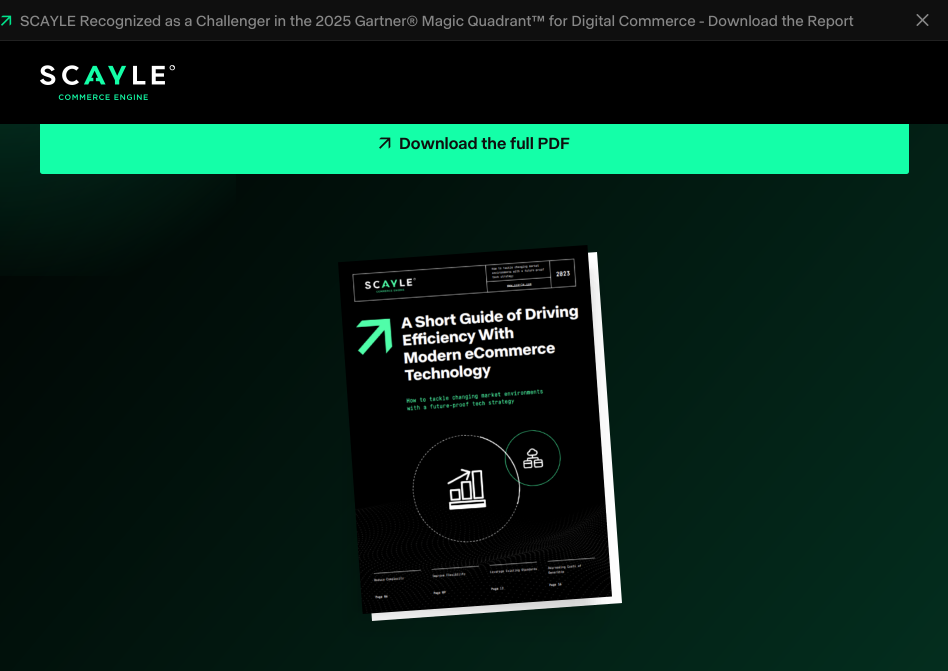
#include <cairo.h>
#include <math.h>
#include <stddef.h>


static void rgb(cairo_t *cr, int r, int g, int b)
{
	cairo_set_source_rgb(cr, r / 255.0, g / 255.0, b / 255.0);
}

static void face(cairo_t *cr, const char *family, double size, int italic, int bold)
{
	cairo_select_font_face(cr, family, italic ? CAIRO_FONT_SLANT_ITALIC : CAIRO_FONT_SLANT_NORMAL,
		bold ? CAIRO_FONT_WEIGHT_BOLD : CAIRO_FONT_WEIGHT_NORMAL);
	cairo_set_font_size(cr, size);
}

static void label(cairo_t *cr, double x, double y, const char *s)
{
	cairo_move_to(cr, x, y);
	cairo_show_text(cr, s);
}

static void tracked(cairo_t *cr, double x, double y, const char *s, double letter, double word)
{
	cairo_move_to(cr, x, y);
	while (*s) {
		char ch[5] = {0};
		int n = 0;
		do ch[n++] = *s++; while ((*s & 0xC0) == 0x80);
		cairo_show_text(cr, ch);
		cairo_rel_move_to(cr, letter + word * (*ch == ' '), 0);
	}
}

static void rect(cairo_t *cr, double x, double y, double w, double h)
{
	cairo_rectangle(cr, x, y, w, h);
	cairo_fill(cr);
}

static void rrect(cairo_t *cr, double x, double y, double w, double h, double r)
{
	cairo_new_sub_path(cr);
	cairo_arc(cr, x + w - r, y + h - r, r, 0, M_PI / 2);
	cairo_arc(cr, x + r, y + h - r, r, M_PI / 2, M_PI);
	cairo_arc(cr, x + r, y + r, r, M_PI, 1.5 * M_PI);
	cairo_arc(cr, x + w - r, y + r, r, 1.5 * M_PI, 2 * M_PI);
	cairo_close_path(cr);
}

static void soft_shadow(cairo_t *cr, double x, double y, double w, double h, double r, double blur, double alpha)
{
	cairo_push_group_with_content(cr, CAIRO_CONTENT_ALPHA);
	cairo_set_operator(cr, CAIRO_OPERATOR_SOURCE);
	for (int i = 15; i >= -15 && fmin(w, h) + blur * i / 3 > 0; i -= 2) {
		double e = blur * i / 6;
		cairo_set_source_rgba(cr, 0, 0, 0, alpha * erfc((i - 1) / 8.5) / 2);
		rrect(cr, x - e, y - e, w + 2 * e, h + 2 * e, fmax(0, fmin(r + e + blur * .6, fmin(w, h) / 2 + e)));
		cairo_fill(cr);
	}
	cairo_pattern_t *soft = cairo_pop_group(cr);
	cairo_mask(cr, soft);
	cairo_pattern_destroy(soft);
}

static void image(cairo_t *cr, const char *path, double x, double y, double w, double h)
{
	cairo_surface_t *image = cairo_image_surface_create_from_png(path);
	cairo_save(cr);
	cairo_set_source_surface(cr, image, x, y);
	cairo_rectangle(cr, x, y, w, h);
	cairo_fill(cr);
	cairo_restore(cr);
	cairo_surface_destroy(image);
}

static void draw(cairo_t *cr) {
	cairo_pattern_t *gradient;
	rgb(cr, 255, 255, 255);
	cairo_paint(cr);
	gradient = cairo_pattern_create_linear(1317, 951, -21, -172);
	cairo_pattern_add_color_stop_rgba(gradient, 0, 0.02, 0.251, 0.165, 1);
	cairo_pattern_add_color_stop_rgba(gradient, 0.93, 0, 0, 0, 1);
	cairo_set_source(cr, gradient);
	cairo_pattern_destroy(gradient);
	rect(cr, 0, 124, 948, 547);
	gradient = cairo_pattern_create_radial(0, 0, 0, 0, 0, 1);
	cairo_pattern_set_matrix(gradient, &(cairo_matrix_t){1.0 / 1006, 0, 0, 1.0 / 1248, -1.0 * 0 / 1006, -1.0 * -197 / 1248});
	cairo_pattern_add_color_stop_rgba(gradient, 0, 0.078, 1, 0.659, 0.4);
	cairo_pattern_add_color_stop_rgba(gradient, 0.4, 0.078, 1, 0.659, 0);
	cairo_pattern_add_color_stop_rgba(gradient, 1, 0, 0, 0, 0);
	cairo_set_source(cr, gradient);
	cairo_pattern_destroy(gradient);
	rect(cr, 0, 124, 236, 152);
	rgb(cr, 20, 255, 168);
	rrect(cr, 41.5, 112.5, 866, 60, 1);
	cairo_fill_preserve(cr);
	cairo_set_line_width(cr, 3);
	cairo_stroke(cr);
	rgb(cr, 0, 0, 0);
	rect(cr, 0, 41, 948, 83);
	rgb(cr, 15, 15, 15);
	rect(cr, 0, 0, 948, 40);
	rgb(cr, 33, 33, 33);
	rect(cr, 0, 40, 948, 1);
	face(cr, "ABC", 19, 0, 0);
	rgb(cr, 0, 228, 140);
	tracked(cr, 0, 26, "↗", 4, 0);
	face(cr, "ABC", 15, 0, 0);
	rgb(cr, 135, 135, 135);
	label(cr, 20, 26, "SCAYLE Recognized as a Challenger in the 2025 Gartner® Magic Quadrant™ for Digital Commerce - Download the Report");
	image(cr, "image0.png", 916, 14, 13, 12);
	image(cr, "image1.png", 40, 65, 135, 35);
	face(cr, "ABC", 21, 0, 0);
	rgb(cr, 15, 15, 15);
	tracked(cr, 378, 149, "↗", 4, 0);
	face(cr, "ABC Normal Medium", 16.5, 0, 0);
	label(cr, 399, 149, "Download the full PDF");
	rgb(cr, 255, 255, 255);
	cairo_new_path(cr);
	cairo_move_to(cr, 348, 269);
	cairo_line_to(cr, 597, 252);
	cairo_line_to(cr, 622, 603);
	cairo_line_to(cr, 372, 621);
	cairo_close_path(cr);
	cairo_fill(cr);
	rgb(cr, 0, 0, 0);
	soft_shadow(cr, 356, 271, 235, 337, 0, 6, 0.1);
	soft_shadow(cr, 355, 285, 238, 339, 0, 15.5, 0.1);
	image(cr, "image2.png", 338, 245, 274, 369);
}

int main(void) {
	cairo_surface_t *surface = cairo_image_surface_create(CAIRO_FORMAT_RGB24, 948, 671);
	cairo_t *cr = cairo_create(surface);
	cairo_font_options_t *options = cairo_font_options_create();
	cairo_font_options_set_hint_metrics(options, CAIRO_HINT_METRICS_OFF);
	cairo_font_options_set_hint_style(options, CAIRO_HINT_STYLE_NONE);
	cairo_set_font_options(cr, options);
	cairo_set_miter_limit(cr, 4);
	draw(cr);
	cairo_surface_write_to_png(surface, "render.png");
	cairo_font_options_destroy(options);
	cairo_destroy(cr);
	cairo_surface_destroy(surface);
	return 0;
}
